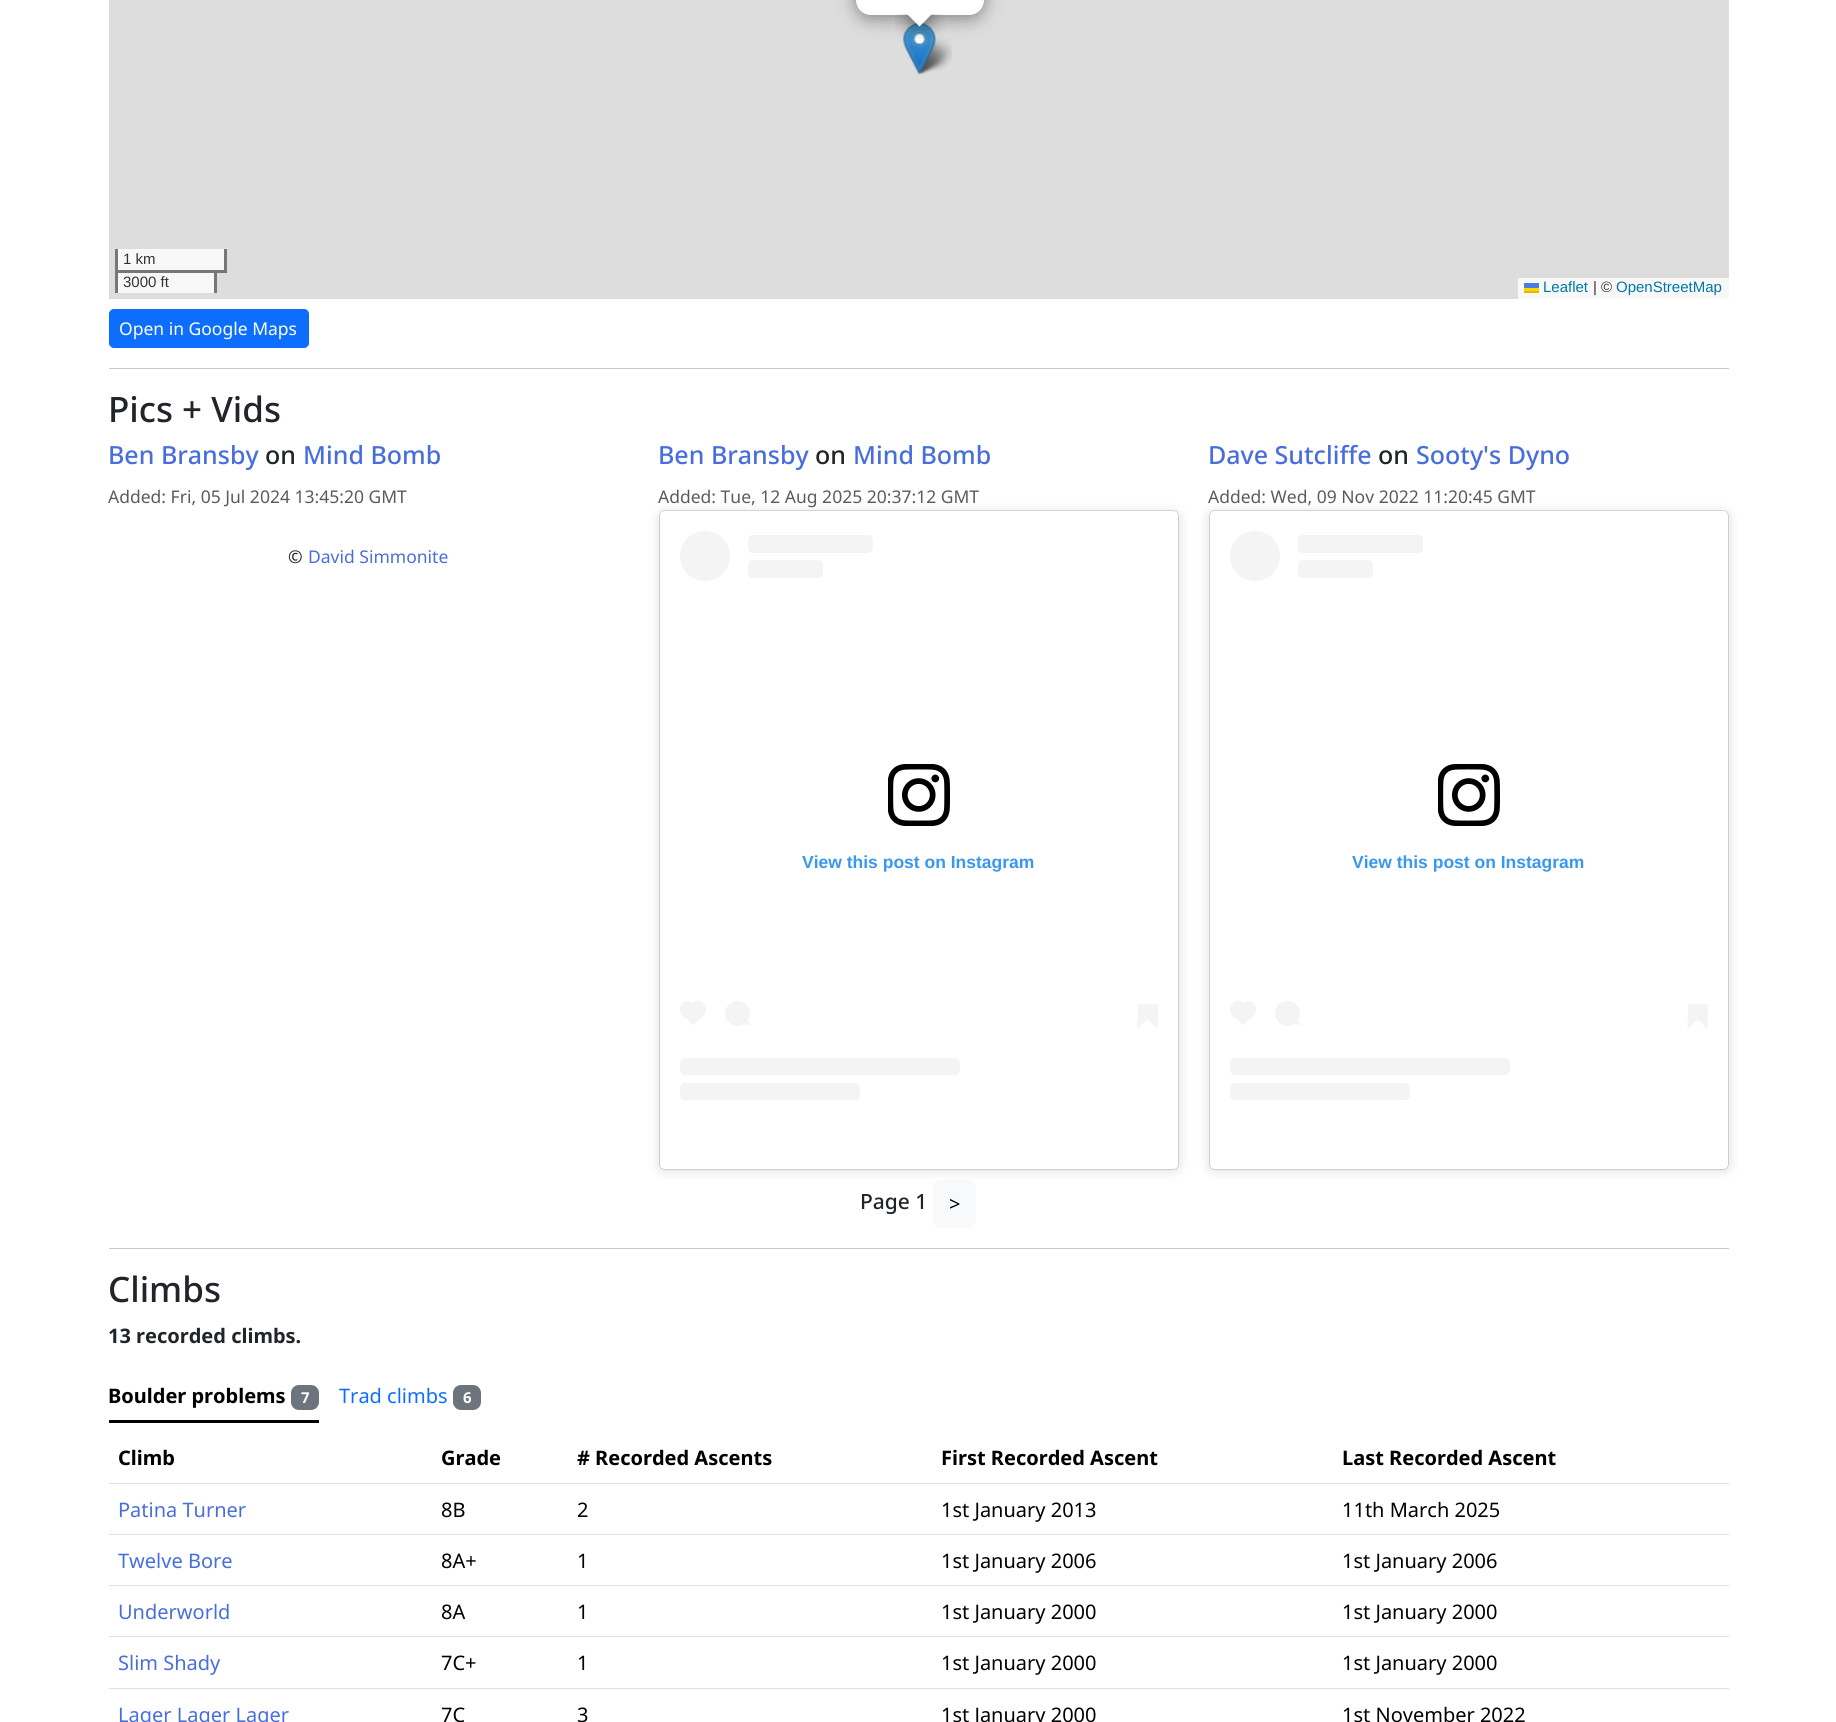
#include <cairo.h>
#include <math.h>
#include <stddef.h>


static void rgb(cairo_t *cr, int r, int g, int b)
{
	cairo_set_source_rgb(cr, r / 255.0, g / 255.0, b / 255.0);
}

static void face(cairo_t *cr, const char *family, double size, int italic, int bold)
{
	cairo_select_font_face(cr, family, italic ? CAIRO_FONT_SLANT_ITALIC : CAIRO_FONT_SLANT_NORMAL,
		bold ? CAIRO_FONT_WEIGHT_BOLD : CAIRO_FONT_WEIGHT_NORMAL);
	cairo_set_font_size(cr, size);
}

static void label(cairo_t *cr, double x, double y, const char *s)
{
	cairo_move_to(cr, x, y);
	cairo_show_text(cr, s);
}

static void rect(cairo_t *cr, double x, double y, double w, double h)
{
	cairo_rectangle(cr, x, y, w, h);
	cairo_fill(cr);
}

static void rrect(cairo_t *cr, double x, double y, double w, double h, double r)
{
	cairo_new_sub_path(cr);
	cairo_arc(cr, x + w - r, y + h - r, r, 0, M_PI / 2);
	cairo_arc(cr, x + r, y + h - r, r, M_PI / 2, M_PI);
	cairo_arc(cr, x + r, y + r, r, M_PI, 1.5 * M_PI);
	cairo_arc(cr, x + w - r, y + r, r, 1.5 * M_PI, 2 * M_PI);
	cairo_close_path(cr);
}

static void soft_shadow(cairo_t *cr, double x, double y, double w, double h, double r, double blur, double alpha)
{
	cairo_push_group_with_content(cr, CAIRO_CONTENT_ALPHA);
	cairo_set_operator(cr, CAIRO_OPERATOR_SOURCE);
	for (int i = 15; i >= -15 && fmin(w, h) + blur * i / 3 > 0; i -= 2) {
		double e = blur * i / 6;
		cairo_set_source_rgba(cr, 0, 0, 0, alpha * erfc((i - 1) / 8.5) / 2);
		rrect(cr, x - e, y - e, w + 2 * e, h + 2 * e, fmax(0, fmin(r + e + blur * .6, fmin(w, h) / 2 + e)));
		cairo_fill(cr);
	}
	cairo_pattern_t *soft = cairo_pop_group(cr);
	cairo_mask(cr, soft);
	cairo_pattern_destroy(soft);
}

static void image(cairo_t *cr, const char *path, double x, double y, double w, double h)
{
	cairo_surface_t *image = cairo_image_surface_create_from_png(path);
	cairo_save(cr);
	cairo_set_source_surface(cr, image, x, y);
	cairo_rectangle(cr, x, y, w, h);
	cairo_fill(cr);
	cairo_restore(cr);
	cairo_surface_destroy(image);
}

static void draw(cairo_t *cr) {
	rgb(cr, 255, 255, 255);
	cairo_paint(cr);
	rgb(cr, 221, 221, 221);
	rect(cr, 109, 0, 1620, 299);
	rgb(cr, 248, 248, 248);
	rect(cr, 118, 273, 96, 20);
	image(cr, "image2.png", 915, 38, 37, 36);
	image(cr, "image3.png", 915, 38, 37, 36);
	image(cr, "image0.png", 903, 23, 33, 52);
	image(cr, "image1.png", 903, 23, 33, 52);
	rgb(cr, 0, 0, 0);
	soft_shadow(cr, 856, -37, 128, 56, 15, 9, 0.4);
	rgb(cr, 255, 255, 255);
	rrect(cr, 856, -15, 128, 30, 15);
	cairo_fill(cr);
	cairo_save(cr);
	cairo_rectangle(cr, 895, 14, 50, 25);
	cairo_clip(cr);
	rgb(cr, 0, 0, 0);
	soft_shadow(cr, 909, 5, 21, 21, 0, 9, 0.4);
	cairo_restore(cr);
	cairo_save(cr);
	cairo_rectangle(cr, 895, 14, 50, 25);
	cairo_clip(cr);
	cairo_new_path(cr);
	cairo_move_to(cr, 919.5, -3.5);
	cairo_line_to(cr, 934.5, 11.5);
	cairo_line_to(cr, 919.5, 26.5);
	cairo_line_to(cr, 904.5, 11.5);
	cairo_close_path(cr);
	cairo_fill(cr);
	cairo_restore(cr);
	rgb(cr, 248, 248, 248);
	rect(cr, 118, 249, 106, 21);
	rgb(cr, 119, 119, 119);
	rect(cr, 224, 249, 3, 24);
	rect(cr, 217, 270, 9, 3);
	rect(cr, 115, 249, 3, 24);
	face(cr, "Liberation Sans", 15, 0, 0);
	rgb(cr, 51, 51, 51);
	label(cr, 123, 264, "1 km");
	rgb(cr, 119, 119, 119);
	rect(cr, 115, 270, 101, 3);
	rect(cr, 214, 270, 3, 23);
	rect(cr, 115, 270, 3, 23);
	rgb(cr, 51, 51, 51);
	label(cr, 123, 287, "3000 ft");
	rgb(cr, 248, 248, 248);
	rect(cr, 1518, 278, 211, 21);
	rgb(cr, 0, 120, 168);
	label(cr, 1543, 292, "Leaflet");
	rgb(cr, 76, 123, 225);
	rect(cr, 1524, 283, 15, 5);
	rgb(cr, 255, 213, 0);
	rect(cr, 1524, 288, 15, 3);
	rgb(cr, 224, 188, 0);
	rect(cr, 1524, 291, 15, 2);
	rgb(cr, 51, 51, 51);
	label(cr, 1593, 292, "| ©");
	rgb(cr, 0, 120, 168);
	label(cr, 1616, 292, "OpenStreetMap");
	rgb(cr, 13, 110, 253);
	rrect(cr, 109.5, 309.5, 199, 38, 4.5);
	cairo_fill_preserve(cr);
	cairo_set_line_width(cr, 1);
	cairo_stroke(cr);
	face(cr, "Noto Sans", 17.5, 0, 0);
	rgb(cr, 255, 255, 255);
	label(cr, 119, 335, "Open in Google Maps");
	rgb(cr, 200, 201, 202);
	rect(cr, 109, 368, 1620, 1);
	face(cr, "Noto Sans Medium", 35, 0, 0);
	rgb(cr, 33, 37, 41);
	label(cr, 108, 422, "Pics + Vids");
	face(cr, "Noto Sans Medium", 25, 0, 0);
	rgb(cr, 72, 110, 222);
	label(cr, 108, 464, "Ben Bransby");
	rgb(cr, 33, 37, 41);
	label(cr, 265, 464, "on");
	rgb(cr, 72, 110, 222);
	label(cr, 303, 464, "Mind Bomb");
	face(cr, "Noto Sans", 17.5, 0, 0);
	rgb(cr, 89, 92, 95);
	label(cr, 108, 503, "Added: Fri, 05 Jul 2024 13:45:20 GMT");
	rgb(cr, 33, 37, 41);
	label(cr, 288, 563, "©");
	rgb(cr, 72, 110, 222);
	label(cr, 308, 563, "David Simmonite");
	face(cr, "Noto Sans Medium", 25, 0, 0);
	label(cr, 658, 464, "Ben Bransby");
	rgb(cr, 33, 37, 41);
	label(cr, 815, 464, "on");
	rgb(cr, 72, 110, 222);
	label(cr, 853, 464, "Mind Bomb");
	rgb(cr, 0, 0, 0);
	soft_shadow(cr, 660, 513, 518, 657, 4, 6, 0.15);
	face(cr, "Noto Sans", 17.5, 0, 0);
	rgb(cr, 89, 92, 95);
	label(cr, 658, 503, "Added: Tue, 12 Aug 2025 20:37:12 GMT");
	rgb(cr, 0, 0, 0);
	soft_shadow(cr, 660, 511, 518, 658, 4, 0.5, 0.5);
	rgb(cr, 255, 255, 255);
	rrect(cr, 660, 511, 518, 658, 4);
	cairo_fill(cr);
	rgb(cr, 244, 244, 244);
	cairo_arc(cr, 705, 556, 25, 0, 2 * M_PI);
	cairo_fill(cr);
	rrect(cr, 748, 535, 125, 18, 5);
	cairo_fill(cr);
	rrect(cr, 748, 560, 75, 18, 5);
	cairo_fill(cr);
	image(cr, "image4.png", 888, 764, 62, 62);
	face(cr, "Liberation Sans", 17.5, 0, 1);
	rgb(cr, 56, 151, 240);
	label(cr, 802, 868, "View this post on Instagram");
	rgb(cr, 244, 244, 244);
	rrect(cr, 680, 1001, 15, 17, 7.5);
	cairo_fill(cr);
	cairo_new_path(cr);
	cairo_move_to(cr, 682, 1014);
	cairo_line_to(cr, 693, 1003);
	cairo_line_to(cr, 704.5, 1014);
	cairo_line_to(cr, 693, 1025.5);
	cairo_close_path(cr);
	cairo_fill(cr);
	rrect(cr, 691, 1001, 15, 17, 7.5);
	cairo_fill(cr);
	cairo_arc(cr, 737.5, 1013.5, 12.5, 0, 2 * M_PI);
	cairo_fill(cr);
	cairo_new_path(cr);
	cairo_move_to(cr, 744.5, 1024);
	cairo_line_to(cr, 747, 1019.5);
	cairo_line_to(cr, 752, 1025.5);
	cairo_close_path(cr);
	cairo_fill(cr);
	rect(cr, 1138, 1004, 20, 15);
	cairo_new_path(cr);
	cairo_move_to(cr, 1137.5, 1019);
	cairo_line_to(cr, 1147.5, 1019);
	cairo_line_to(cr, 1137.5, 1029);
	cairo_close_path(cr);
	cairo_fill(cr);
	cairo_new_path(cr);
	cairo_move_to(cr, 1147.5, 1019);
	cairo_line_to(cr, 1157.5, 1019);
	cairo_line_to(cr, 1157.5, 1029);
	cairo_close_path(cr);
	cairo_fill(cr);
	rrect(cr, 680, 1058, 280, 17, 5);
	cairo_fill(cr);
	rrect(cr, 680, 1083, 180, 17, 5);
	cairo_fill(cr);
	face(cr, "Noto Sans Medium", 25, 0, 0);
	rgb(cr, 72, 110, 222);
	label(cr, 1208, 464, "Dave Sutcliffe");
	rgb(cr, 33, 37, 41);
	label(cr, 1378, 464, "on");
	rgb(cr, 72, 110, 222);
	label(cr, 1416, 464, "Sooty's Dyno");
	rgb(cr, 0, 0, 0);
	soft_shadow(cr, 1210, 513, 518, 657, 4, 6, 0.15);
	face(cr, "Noto Sans", 17.5, 0, 0);
	rgb(cr, 89, 92, 95);
	label(cr, 1208, 503, "Added: Wed, 09 Nov 2022 11:20:45 GMT");
	rgb(cr, 0, 0, 0);
	soft_shadow(cr, 1210, 511, 518, 658, 4, 0.5, 0.5);
	rgb(cr, 255, 255, 255);
	rrect(cr, 1210, 511, 518, 658, 4);
	cairo_fill(cr);
	rgb(cr, 244, 244, 244);
	cairo_arc(cr, 1255, 556, 25, 0, 2 * M_PI);
	cairo_fill(cr);
	rrect(cr, 1298, 535, 125, 18, 5);
	cairo_fill(cr);
	rrect(cr, 1298, 560, 75, 18, 5);
	cairo_fill(cr);
	image(cr, "image4.png", 1438, 764, 62, 62);
	face(cr, "Liberation Sans", 17.5, 0, 1);
	rgb(cr, 56, 151, 240);
	label(cr, 1352, 868, "View this post on Instagram");
	rgb(cr, 244, 244, 244);
	rrect(cr, 1230, 1001, 15, 17, 7.5);
	cairo_fill(cr);
	cairo_new_path(cr);
	cairo_move_to(cr, 1232, 1014);
	cairo_line_to(cr, 1243, 1003);
	cairo_line_to(cr, 1254.5, 1014);
	cairo_line_to(cr, 1243, 1025.5);
	cairo_close_path(cr);
	cairo_fill(cr);
	rrect(cr, 1241, 1001, 15, 17, 7.5);
	cairo_fill(cr);
	cairo_arc(cr, 1287.5, 1013.5, 12.5, 0, 2 * M_PI);
	cairo_fill(cr);
	cairo_new_path(cr);
	cairo_move_to(cr, 1294.5, 1024);
	cairo_line_to(cr, 1297, 1019.5);
	cairo_line_to(cr, 1302, 1025.5);
	cairo_close_path(cr);
	cairo_fill(cr);
	rect(cr, 1688, 1004, 20, 15);
	cairo_new_path(cr);
	cairo_move_to(cr, 1687.5, 1019);
	cairo_line_to(cr, 1697.5, 1019);
	cairo_line_to(cr, 1687.5, 1029);
	cairo_close_path(cr);
	cairo_fill(cr);
	cairo_new_path(cr);
	cairo_move_to(cr, 1697.5, 1019);
	cairo_line_to(cr, 1707.5, 1019);
	cairo_line_to(cr, 1707.5, 1029);
	cairo_close_path(cr);
	cairo_fill(cr);
	rrect(cr, 1230, 1058, 280, 17, 5);
	cairo_fill(cr);
	rrect(cr, 1230, 1083, 180, 17, 5);
	cairo_fill(cr);
	face(cr, "Noto Sans Medium", 21, 0, 0);
	rgb(cr, 33, 37, 41);
	label(cr, 860, 1209, "Page 1");
	rgb(cr, 248, 249, 250);
	rrect(cr, 933, 1180, 43, 48, 8);
	cairo_fill(cr);
	face(cr, "Noto Sans", 20, 0, 0);
	rgb(cr, 0, 0, 0);
	label(cr, 949, 1211, ">");
	rgb(cr, 200, 201, 202);
	rect(cr, 109, 1248, 1620, 1);
	face(cr, "Noto Sans Medium", 35, 0, 0);
	rgb(cr, 33, 37, 41);
	label(cr, 108, 1302, "Climbs");
	face(cr, "Noto Sans", 20, 0, 1);
	label(cr, 108, 1343, "13 recorded climbs.");
	rgb(cr, 0, 0, 0);
	rect(cr, 109, 1420, 210, 3);
	label(cr, 108, 1403, "Boulder problems");
	rgb(cr, 108, 117, 125);
	rrect(cr, 291, 1385, 28, 25, 8);
	cairo_fill(cr);
	face(cr, "Noto Sans", 15, 0, 1);
	rgb(cr, 255, 255, 255);
	label(cr, 301, 1403, "7");
	face(cr, "Noto Sans", 20, 0, 0);
	rgb(cr, 13, 110, 253);
	label(cr, 339, 1403, "Trad climbs");
	rgb(cr, 108, 117, 125);
	rrect(cr, 453, 1385, 28, 25, 8);
	cairo_fill(cr);
	face(cr, "Noto Sans", 15, 0, 1);
	rgb(cr, 255, 255, 255);
	label(cr, 463, 1403, "6");
	face(cr, "Noto Sans", 20, 0, 1);
	rgb(cr, 0, 0, 0);
	label(cr, 118, 1465, "Climb");
	label(cr, 441, 1465, "Grade");
	label(cr, 577, 1465, "# Recorded Ascents");
	label(cr, 941, 1465, "First Recorded Ascent");
	rgb(cr, 222, 226, 230);
	rect(cr, 109, 1483, 1620, 1);
	rgb(cr, 0, 0, 0);
	label(cr, 1342, 1465, "Last Recorded Ascent");
	face(cr, "Noto Sans", 20, 0, 0);
	rgb(cr, 72, 110, 222);
	label(cr, 118, 1517, "Patina Turner");
	rgb(cr, 0, 0, 0);
	label(cr, 441, 1517, "8B");
	label(cr, 577, 1517, "2");
	label(cr, 941, 1517, "1st January 2013");
	rgb(cr, 222, 226, 230);
	rect(cr, 109, 1534, 1620, 1);
	rgb(cr, 0, 0, 0);
	label(cr, 1342, 1517, "11th March 2025");
	rgb(cr, 72, 110, 222);
	label(cr, 118, 1568, "Twelve Bore");
	rgb(cr, 0, 0, 0);
	label(cr, 441, 1568, "8A+");
	label(cr, 577, 1568, "1");
	label(cr, 941, 1568, "1st January 2006");
	rgb(cr, 222, 226, 230);
	rect(cr, 109, 1585, 1620, 1);
	rgb(cr, 0, 0, 0);
	label(cr, 1342, 1568, "1st January 2006");
	rgb(cr, 72, 110, 222);
	label(cr, 118, 1619, "Underworld");
	rgb(cr, 0, 0, 0);
	label(cr, 441, 1619, "8A");
	label(cr, 577, 1619, "1");
	label(cr, 941, 1619, "1st January 2000");
	rgb(cr, 222, 226, 230);
	rect(cr, 109, 1636, 1620, 1);
	rgb(cr, 0, 0, 0);
	label(cr, 1342, 1619, "1st January 2000");
	rgb(cr, 72, 110, 222);
	label(cr, 118, 1670, "Slim Shady");
	rgb(cr, 0, 0, 0);
	label(cr, 441, 1670, "7C+");
	label(cr, 577, 1670, "1");
	label(cr, 941, 1670, "1st January 2000");
	rgb(cr, 222, 226, 230);
	rect(cr, 109, 1688, 1620, 1);
	rgb(cr, 0, 0, 0);
	label(cr, 1342, 1670, "1st January 2000");
	rgb(cr, 72, 110, 222);
	label(cr, 118, 1722, "Lager Lager Lager");
	rgb(cr, 0, 0, 0);
	label(cr, 441, 1722, "7C");
	label(cr, 577, 1722, "3");
	label(cr, 941, 1722, "1st January 2000");
	label(cr, 1342, 1722, "1st November 2022");
}

int main(void) {
	cairo_surface_t *surface = cairo_image_surface_create(CAIRO_FORMAT_RGB24, 1836, 1722);
	cairo_t *cr = cairo_create(surface);
	cairo_font_options_t *options = cairo_font_options_create();
	cairo_font_options_set_hint_metrics(options, CAIRO_HINT_METRICS_OFF);
	cairo_font_options_set_hint_style(options, CAIRO_HINT_STYLE_NONE);
	cairo_set_font_options(cr, options);
	cairo_set_miter_limit(cr, 4);
	draw(cr);
	cairo_surface_write_to_png(surface, "render.png");
	cairo_font_options_destroy(options);
	cairo_destroy(cr);
	cairo_surface_destroy(surface);
	return 0;
}
